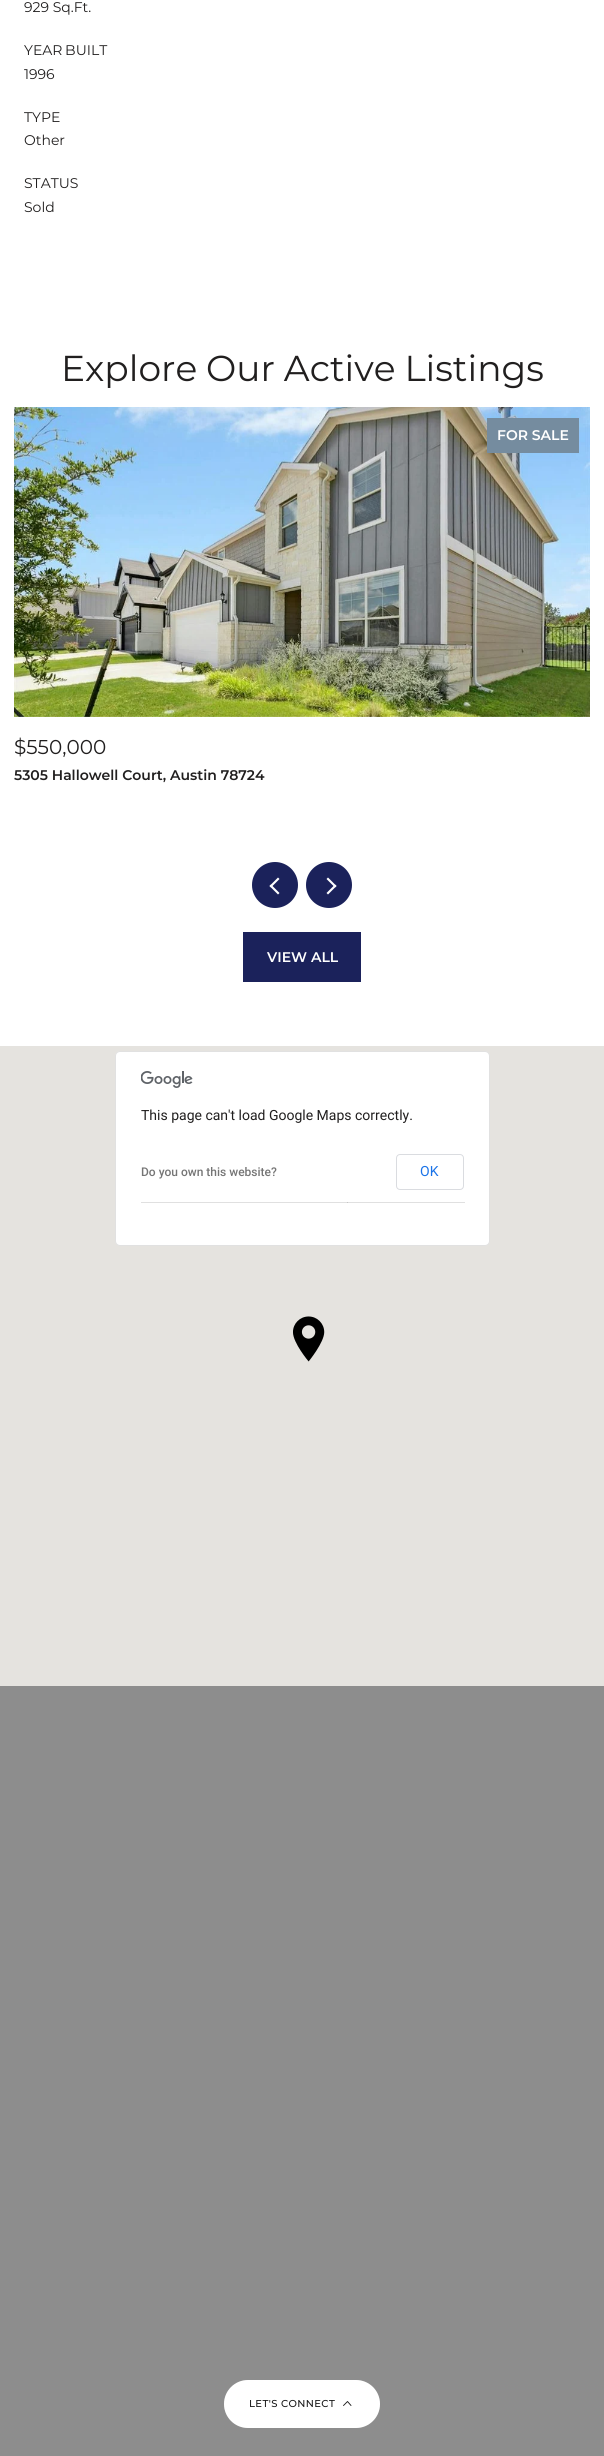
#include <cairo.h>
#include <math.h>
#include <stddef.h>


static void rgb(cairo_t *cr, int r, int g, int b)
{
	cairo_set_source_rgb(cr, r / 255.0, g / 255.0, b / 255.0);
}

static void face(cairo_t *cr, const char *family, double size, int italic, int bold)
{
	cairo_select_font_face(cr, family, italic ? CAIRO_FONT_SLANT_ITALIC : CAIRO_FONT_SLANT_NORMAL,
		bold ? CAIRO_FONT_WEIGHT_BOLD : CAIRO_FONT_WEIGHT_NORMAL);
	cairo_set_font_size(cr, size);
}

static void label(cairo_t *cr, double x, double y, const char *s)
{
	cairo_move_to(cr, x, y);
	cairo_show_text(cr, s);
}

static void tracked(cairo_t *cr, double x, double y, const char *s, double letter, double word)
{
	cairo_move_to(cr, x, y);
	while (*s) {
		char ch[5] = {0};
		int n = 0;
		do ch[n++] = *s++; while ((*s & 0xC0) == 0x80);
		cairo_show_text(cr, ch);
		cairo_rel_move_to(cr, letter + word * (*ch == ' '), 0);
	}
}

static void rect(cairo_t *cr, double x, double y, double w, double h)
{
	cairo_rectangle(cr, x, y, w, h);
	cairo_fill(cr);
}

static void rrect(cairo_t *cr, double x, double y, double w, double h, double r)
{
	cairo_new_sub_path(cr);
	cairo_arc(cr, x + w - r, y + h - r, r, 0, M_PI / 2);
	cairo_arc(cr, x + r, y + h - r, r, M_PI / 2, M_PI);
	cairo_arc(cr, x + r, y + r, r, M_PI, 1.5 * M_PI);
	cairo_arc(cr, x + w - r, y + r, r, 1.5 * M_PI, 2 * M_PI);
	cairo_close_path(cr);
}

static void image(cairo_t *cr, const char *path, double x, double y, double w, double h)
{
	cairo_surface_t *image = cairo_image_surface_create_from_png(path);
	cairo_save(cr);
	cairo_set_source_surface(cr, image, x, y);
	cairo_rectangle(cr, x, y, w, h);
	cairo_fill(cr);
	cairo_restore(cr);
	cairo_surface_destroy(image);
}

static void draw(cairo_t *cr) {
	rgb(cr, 255, 255, 255);
	cairo_paint(cr);
	face(cr, "Montserrat", 14, 0, 0);
	rgb(cr, 33, 31, 31);
	label(cr, 24, 12, "929 Sq.Ft.");
	tracked(cr, 24, 55, "YEAR BUILT", 0, -1);
	label(cr, 24, 79, "1996");
	label(cr, 24, 122, "TYPE");
	label(cr, 24, 145, "Other");
	label(cr, 24, 188, "STATUS");
	label(cr, 24, 212, "Sold");
	face(cr, "Montserrat", 36, 0, 0);
	tracked(cr, 61, 381, "Explore Our Active Listings", 0, -0.5);
	image(cr, "image0.png", 14, 407, 576, 310);
	rgb(cr, 117, 140, 159);
	rect(cr, 487, 418, 92, 35);
	face(cr, "Montserrat SemiBold", 14, 0, 0);
	rgb(cr, 255, 255, 255);
	label(cr, 497, 440, "FOR SALE");
	face(cr, "Montserrat", 20, 0, 0);
	rgb(cr, 33, 31, 31);
	label(cr, 14, 754, "$550,000");
	face(cr, "Montserrat SemiBold", 14, 0, 0);
	label(cr, 14, 780, "5305 Hallowell Court, Austin 78724");
	rgb(cr, 27, 34, 91);
	cairo_new_path(cr);
	cairo_arc(cr, 275, 885, 22, 0, 2 * M_PI);
	cairo_fill_preserve(cr);
	cairo_stroke(cr);
	rgb(cr, 255, 255, 255);
	cairo_new_path(cr);
	cairo_move_to(cr, 278, 894.5);
	cairo_line_to(cr, 269.5, 886);
	cairo_line_to(cr, 271, 884.5);
	cairo_line_to(cr, 279.5, 893);
	cairo_close_path(cr);
	cairo_fill(cr);
	cairo_new_path(cr);
	cairo_move_to(cr, 271, 887.5);
	cairo_line_to(cr, 269.5, 886);
	cairo_line_to(cr, 278, 877.5);
	cairo_line_to(cr, 279.5, 879);
	cairo_close_path(cr);
	cairo_fill(cr);
	rgb(cr, 27, 34, 91);
	cairo_arc(cr, 329, 885, 22, 0, 2 * M_PI);
	cairo_fill_preserve(cr);
	cairo_stroke(cr);
	rgb(cr, 255, 255, 255);
	cairo_new_path(cr);
	cairo_move_to(cr, 328, 877.5);
	cairo_line_to(cr, 336.5, 886);
	cairo_line_to(cr, 335, 887.5);
	cairo_line_to(cr, 326.5, 879);
	cairo_close_path(cr);
	cairo_fill(cr);
	cairo_new_path(cr);
	cairo_move_to(cr, 335, 884.5);
	cairo_line_to(cr, 336.5, 886);
	cairo_line_to(cr, 328, 894.5);
	cairo_line_to(cr, 326.5, 893);
	cairo_close_path(cr);
	cairo_fill(cr);
	rgb(cr, 27, 34, 91);
	rect(cr, 243, 932, 118, 50);
	rgb(cr, 255, 255, 255);
	label(cr, 267, 962, "VIEW ALL");
	rgb(cr, 229, 227, 223);
	rect(cr, 0, 1046, 604, 640);
	image(cr, "image1.png", 293, 1316, 32, 46);
	rgb(cr, 255, 255, 255);
	rrect(cr, 115, 1051, 375, 195, 5);
	cairo_fill(cr);
	rgb(cr, 224, 224, 224);
	rect(cr, 141, 1202, 207, 1);
	rrect(cr, 115.5, 1051.5, 374, 194, 4.5);
	cairo_set_source_rgba(cr, 0, 0, 0, 0.12);
	cairo_set_line_width(cr, 1);
	cairo_stroke(cr);
	image(cr, "image2.png", 141, 1071, 52, 17);
	face(cr, "Roboto", 14, 0, 0);
	rgb(cr, 33, 31, 31);
	label(cr, 141, 1120, "This page can't load Google Maps correctly.");
	face(cr, "Roboto Medium", 12, 0, 0);
	rgb(cr, 117, 117, 117);
	label(cr, 141, 1176, "Do you own this website?");
	rgb(cr, 224, 224, 224);
	rect(cr, 347, 1202, 118, 1);
	rgb(cr, 197, 197, 197);
	rect(cr, 347, 1202, 1, 1);
	rrect(cr, 396.5, 1154.5, 67, 35, 3.5);
	rgb(cr, 218, 220, 224);
	cairo_stroke(cr);
	face(cr, "Roboto", 14, 0, 0);
	rgb(cr, 26, 115, 232);
	label(cr, 420, 1176, "OK");
	rgb(cr, 141, 141, 141);
	rect(cr, 0, 1686, 604, 770);
	rgb(cr, 255, 255, 255);
	rrect(cr, 224, 2380, 156, 48, 24);
	cairo_fill(cr);
	rrect(cr, 224.5, 2380.5, 155, 47, 23.5);
	cairo_set_source_rgba(cr, 1, 1, 1, 0.2);
	cairo_stroke(cr);
	face(cr, "Montserrat Medium", 10, 0, 0);
	rgb(cr, 26, 26, 26);
	tracked(cr, 249, 2407, "LET'S CONNECT", 0.4, 0);
	cairo_new_path(cr);
	cairo_move_to(cr, 351, 2405.5);
	cairo_line_to(cr, 347.5, 2401.5);
	cairo_line_to(cr, 343.5, 2405.5);
	cairo_set_line_width(cr, 0.9);
	cairo_set_line_cap(cr, CAIRO_LINE_CAP_ROUND);
	cairo_set_line_join(cr, CAIRO_LINE_JOIN_ROUND);
	cairo_stroke(cr);
}

int main(void) {
	cairo_surface_t *surface = cairo_image_surface_create(CAIRO_FORMAT_RGB24, 604, 2456);
	cairo_t *cr = cairo_create(surface);
	cairo_font_options_t *options = cairo_font_options_create();
	cairo_font_options_set_hint_metrics(options, CAIRO_HINT_METRICS_OFF);
	cairo_font_options_set_hint_style(options, CAIRO_HINT_STYLE_NONE);
	cairo_set_font_options(cr, options);
	cairo_set_miter_limit(cr, 4);
	draw(cr);
	cairo_surface_write_to_png(surface, "render.png");
	cairo_font_options_destroy(options);
	cairo_destroy(cr);
	cairo_surface_destroy(surface);
	return 0;
}
